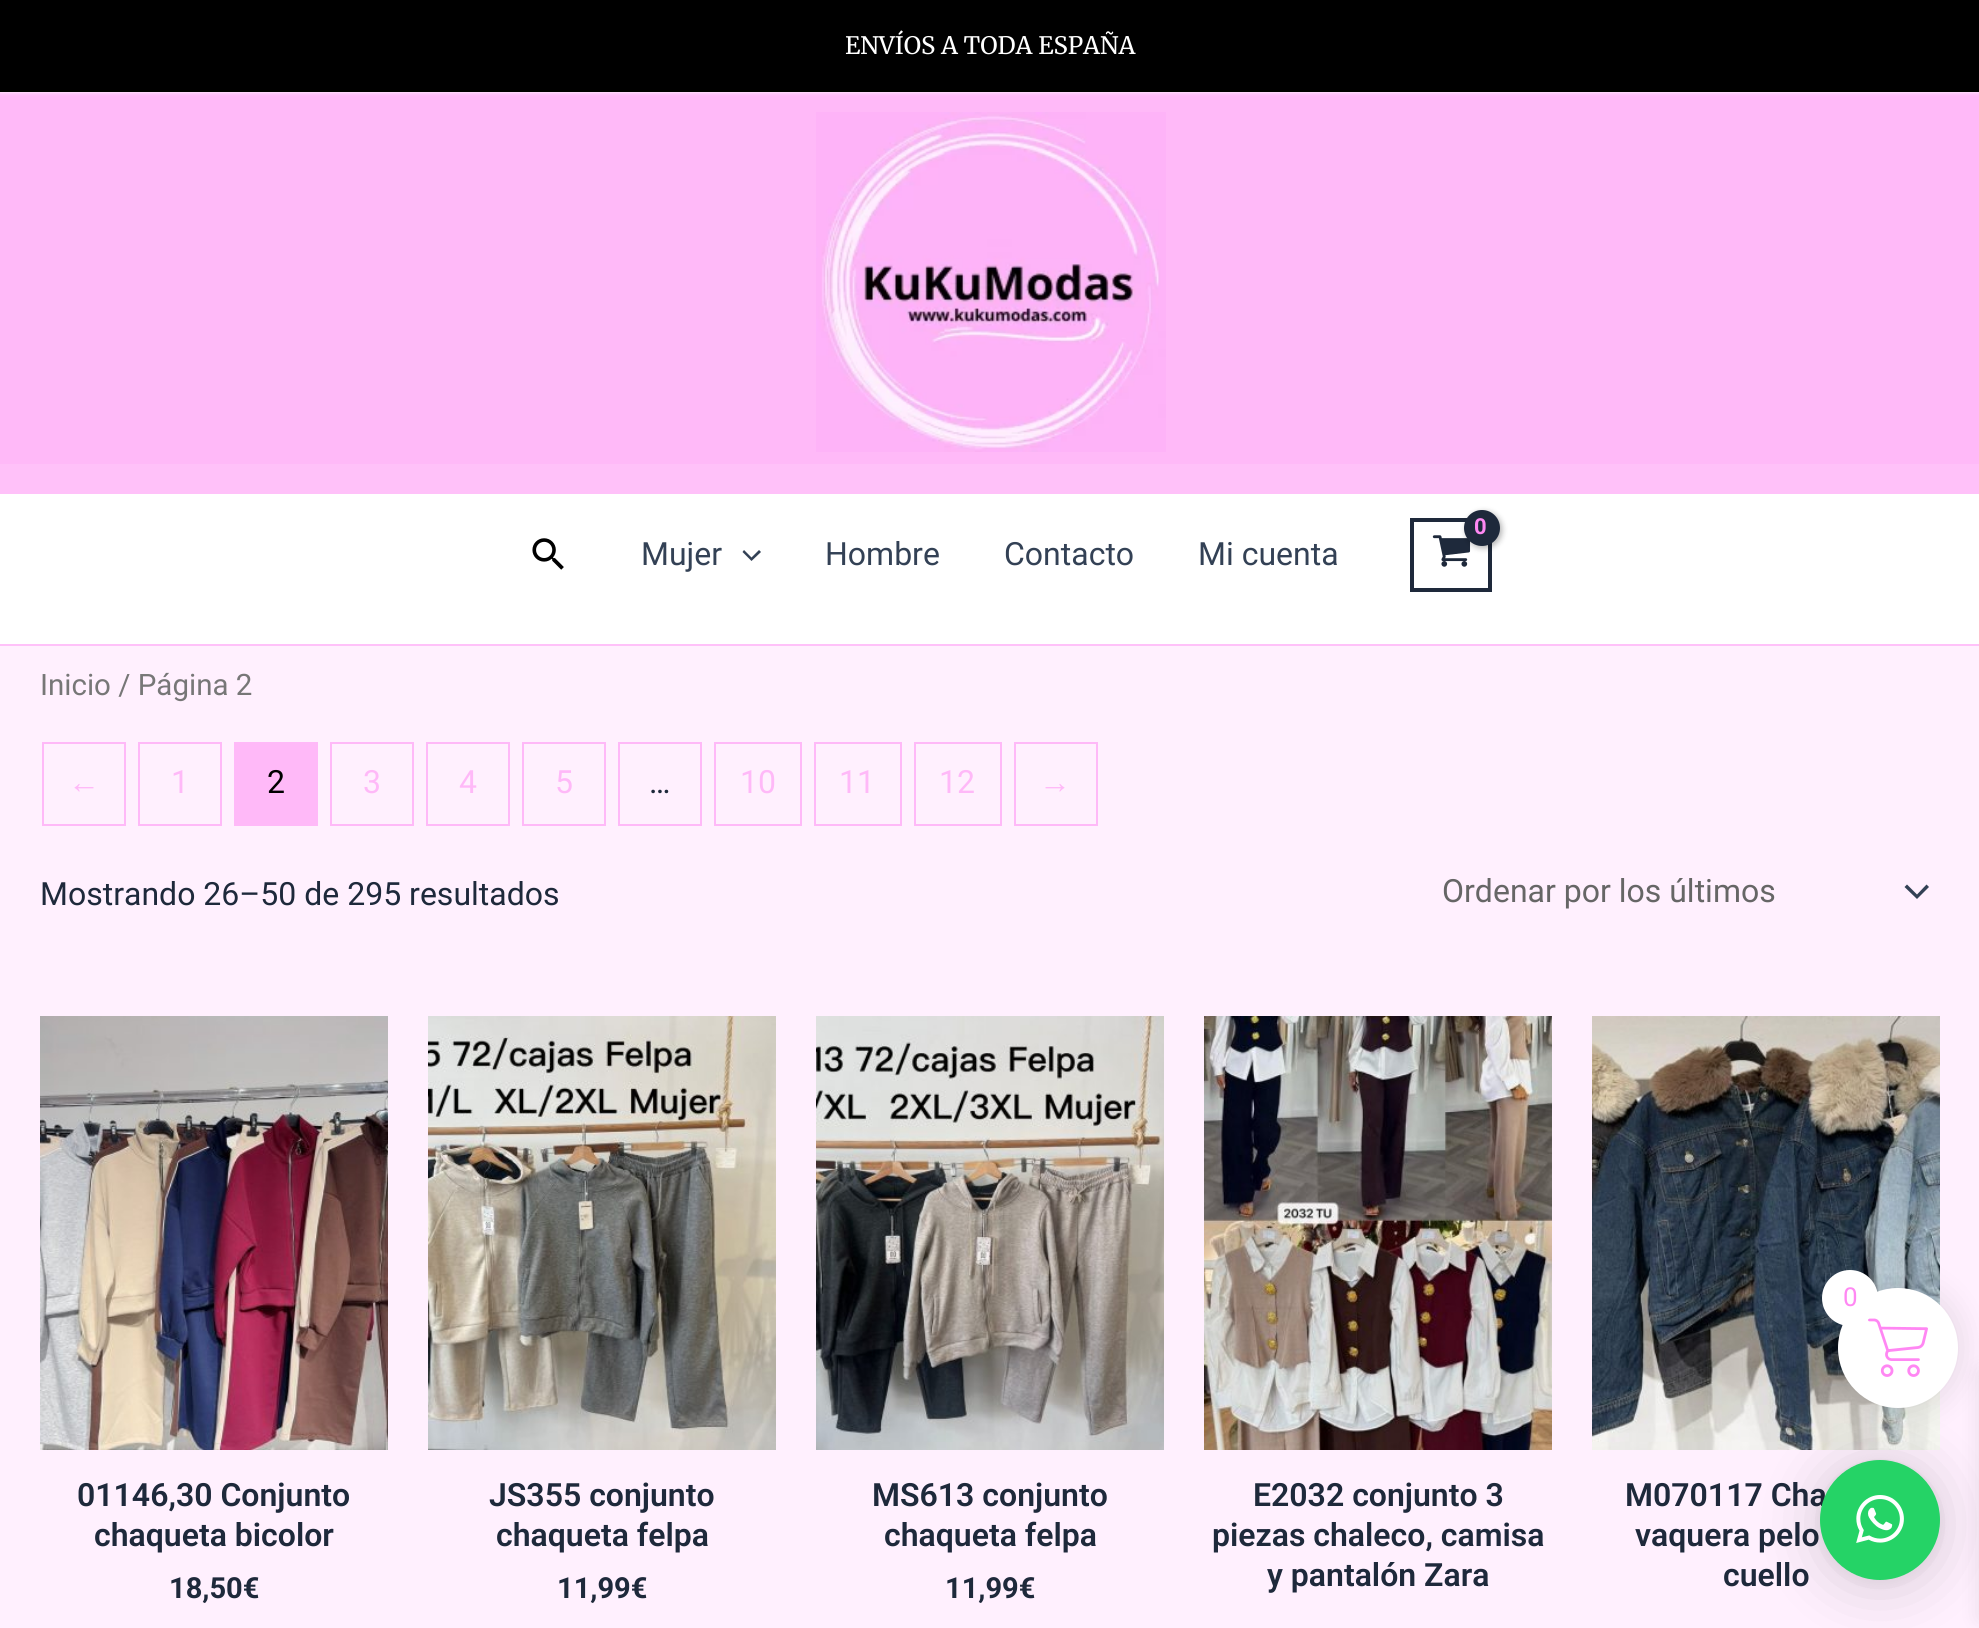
#include <cairo.h>
#include <math.h>
#include <stddef.h>


static void rgb(cairo_t *cr, int r, int g, int b)
{
	cairo_set_source_rgb(cr, r / 255.0, g / 255.0, b / 255.0);
}

static void face(cairo_t *cr, const char *family, double size, int italic, int bold)
{
	cairo_select_font_face(cr, family, italic ? CAIRO_FONT_SLANT_ITALIC : CAIRO_FONT_SLANT_NORMAL,
		bold ? CAIRO_FONT_WEIGHT_BOLD : CAIRO_FONT_WEIGHT_NORMAL);
	cairo_set_font_size(cr, size);
}

static void label(cairo_t *cr, double x, double y, const char *s)
{
	cairo_move_to(cr, x, y);
	cairo_show_text(cr, s);
}

static void tracked(cairo_t *cr, double x, double y, const char *s, double letter, double word)
{
	cairo_move_to(cr, x, y);
	while (*s) {
		char ch[5] = {0};
		int n = 0;
		do ch[n++] = *s++; while ((*s & 0xC0) == 0x80);
		cairo_show_text(cr, ch);
		cairo_rel_move_to(cr, letter + word * (*ch == ' '), 0);
	}
}

static void rect(cairo_t *cr, double x, double y, double w, double h)
{
	cairo_rectangle(cr, x, y, w, h);
	cairo_fill(cr);
}

static void rrect(cairo_t *cr, double x, double y, double w, double h, double r)
{
	cairo_new_sub_path(cr);
	cairo_arc(cr, x + w - r, y + h - r, r, 0, M_PI / 2);
	cairo_arc(cr, x + r, y + h - r, r, M_PI / 2, M_PI);
	cairo_arc(cr, x + r, y + r, r, M_PI, 1.5 * M_PI);
	cairo_arc(cr, x + w - r, y + r, r, 1.5 * M_PI, 2 * M_PI);
	cairo_close_path(cr);
}

static void soft_shadow(cairo_t *cr, double x, double y, double w, double h, double r, double blur, double alpha)
{
	cairo_push_group_with_content(cr, CAIRO_CONTENT_ALPHA);
	cairo_set_operator(cr, CAIRO_OPERATOR_SOURCE);
	for (int i = 15; i >= -15 && fmin(w, h) + blur * i / 3 > 0; i -= 2) {
		double e = blur * i / 6;
		cairo_set_source_rgba(cr, 0, 0, 0, alpha * erfc((i - 1) / 8.5) / 2);
		rrect(cr, x - e, y - e, w + 2 * e, h + 2 * e, fmax(0, fmin(r + e + blur * .6, fmin(w, h) / 2 + e)));
		cairo_fill(cr);
	}
	cairo_pattern_t *soft = cairo_pop_group(cr);
	cairo_mask(cr, soft);
	cairo_pattern_destroy(soft);
}

static void image(cairo_t *cr, const char *path, double x, double y, double w, double h)
{
	cairo_surface_t *image = cairo_image_surface_create_from_png(path);
	cairo_save(cr);
	cairo_set_source_surface(cr, image, x, y);
	cairo_rectangle(cr, x, y, w, h);
	cairo_fill(cr);
	cairo_restore(cr);
	cairo_surface_destroy(image);
}

static void draw(cairo_t *cr) {
	rgb(cr, 255, 240, 254);
	cairo_paint(cr);
	rgb(cr, 255, 185, 248);
	rect(cr, 0, 92, 1979, 372);
	rgb(cr, 255, 255, 255);
	soft_shadow(cr, 0, 0, 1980, 92, 0, 2, 1);
	rgb(cr, 0, 0, 0);
	rect(cr, 0, 0, 1979, 92);
	face(cr, "Merriweather Light", 24, 0, 0);
	rgb(cr, 255, 255, 255);
	label(cr, 845, 54, "ENVÍOS A TODA ESPAÑA");
	image(cr, "image0.png", 816, 112, 350, 340);
	rect(cr, 0, 494, 1979, 150);
	rgb(cr, 255, 193, 249);
	rect(cr, 0, 464, 1979, 30);
	rect(cr, 0, 644, 1979, 2);
	cairo_rectangle(cr, 1412, 520, 78, 70);
	rgb(cr, 30, 41, 59);
	cairo_set_line_width(cr, 4);
	cairo_stroke(cr);
	image(cr, "image1.png", 1432, 535, 39, 32);
	rgb(cr, 0, 0, 0);
	soft_shadow(cr, 1466, 512, 36, 36, 18, 3, 0.3);
	rgb(cr, 30, 41, 59);
	cairo_arc(cr, 1482, 528, 18, 0, 2 * M_PI);
	cairo_fill(cr);
	face(cr, "Roboto", 22, 0, 1);
	rgb(cr, 255, 136, 243);
	tracked(cr, 1474, 534, "0", -1, 0);
	image(cr, "image2.png", 532, 538, 32, 32);
	face(cr, "Roboto", 32, 0, 0);
	rgb(cr, 51, 65, 85);
	label(cr, 641, 565, "Mujer");
	cairo_new_path(cr);
	cairo_move_to(cr, 742.5, 552);
	cairo_line_to(cr, 751.5, 561);
	cairo_line_to(cr, 761, 552);
	cairo_line_to(cr, 759, 550);
	cairo_line_to(cr, 751.5, 557.5);
	cairo_line_to(cr, 744, 550);
	cairo_close_path(cr);
	cairo_fill(cr);
	label(cr, 825, 565, "Hombre");
	label(cr, 1004, 565, "Contacto");
	label(cr, 1198, 565, "Mi cuenta");
	face(cr, "Roboto", 29.5, 0, 0);
	rgb(cr, 119, 119, 119);
	label(cr, 40, 695, "Inicio / Página 2");
	cairo_rectangle(cr, 43, 743, 82, 82);
	rgb(cr, 255, 185, 248);
	cairo_set_line_width(cr, 2);
	cairo_stroke(cr);
	face(cr, "Liberation Sans", 32, 0, 0);
	label(cr, 68, 793, "←");
	cairo_rectangle(cr, 139, 743, 82, 82);
	cairo_stroke(cr);
	face(cr, "Roboto", 32, 0, 0);
	label(cr, 171, 793, "1");
	cairo_rectangle(cr, 235, 743, 82, 82);
	cairo_stroke(cr);
	rect(cr, 236, 744, 80, 80);
	rgb(cr, 0, 0, 0);
	label(cr, 267, 793, "2");
	cairo_rectangle(cr, 331, 743, 82, 82);
	rgb(cr, 255, 185, 248);
	cairo_stroke(cr);
	label(cr, 363, 793, "3");
	cairo_rectangle(cr, 427, 743, 82, 82);
	cairo_stroke(cr);
	label(cr, 459, 793, "4");
	cairo_rectangle(cr, 523, 743, 82, 82);
	cairo_stroke(cr);
	label(cr, 555, 793, "5");
	cairo_rectangle(cr, 619, 743, 82, 82);
	cairo_stroke(cr);
	rgb(cr, 30, 41, 59);
	label(cr, 649, 793, "…");
	cairo_rectangle(cr, 715, 743, 86, 82);
	rgb(cr, 255, 185, 248);
	cairo_stroke(cr);
	label(cr, 740, 793, "10");
	cairo_rectangle(cr, 815, 743, 86, 82);
	cairo_stroke(cr);
	label(cr, 839, 793, "11");
	cairo_rectangle(cr, 915, 743, 86, 82);
	cairo_stroke(cr);
	label(cr, 939, 793, "12");
	cairo_rectangle(cr, 1015, 743, 82, 82);
	cairo_stroke(cr);
	face(cr, "Liberation Sans", 32, 0, 0);
	label(cr, 1039, 793, "→");
	face(cr, "Roboto", 32, 0, 0);
	rgb(cr, 30, 41, 59);
	label(cr, 40, 905, "Mostrando 26–50 de 295 resultados");
	rgb(cr, 51, 65, 85);
	cairo_new_path(cr);
	cairo_move_to(cr, 1904.5, 887);
	cairo_line_to(cr, 1917, 899);
	cairo_line_to(cr, 1929, 887);
	cairo_line_to(cr, 1926.5, 884.5);
	cairo_line_to(cr, 1917, 894.5);
	cairo_line_to(cr, 1907, 884.5);
	cairo_close_path(cr);
	cairo_fill(cr);
	rgb(cr, 102, 102, 102);
	label(cr, 1442, 902, "Ordenar por los últimos");
	image(cr, "image3.png", 40, 1016, 348, 434);
	face(cr, "Roboto SemiBold", 32, 0, 0);
	rgb(cr, 30, 41, 59);
	label(cr, 77, 1506, "01146,30 Conjunto");
	label(cr, 94, 1546, "chaqueta bicolor");
	face(cr, "Roboto", 29, 0, 1);
	label(cr, 169, 1598, "18,50€");
	image(cr, "image4.png", 428, 1016, 348, 434);
	face(cr, "Roboto SemiBold", 32, 0, 0);
	label(cr, 489, 1506, "JS355 conjunto");
	label(cr, 496, 1546, "chaqueta felpa");
	face(cr, "Roboto", 29, 0, 1);
	label(cr, 557, 1598, "11,99€");
	image(cr, "image5.png", 816, 1016, 348, 434);
	face(cr, "Roboto SemiBold", 32, 0, 0);
	label(cr, 872, 1506, "MS613 conjunto");
	label(cr, 884, 1546, "chaqueta felpa");
	face(cr, "Roboto", 29, 0, 1);
	label(cr, 945, 1598, "11,99€");
	image(cr, "image6.png", 1204, 1016, 348, 434);
	face(cr, "Roboto SemiBold", 32, 0, 0);
	label(cr, 1253, 1506, "E2032 conjunto 3");
	label(cr, 1212, 1546, "piezas chaleco, camisa");
	label(cr, 1267, 1586, "y pantalón Zara");
	image(cr, "image7.png", 1592, 1016, 348, 434);
	label(cr, 1625, 1506, "M070117 Cha");
	label(cr, 1635, 1546, "vaquera pelo");
	label(cr, 1723, 1586, "cuello");
	rgb(cr, 0, 0, 0);
	soft_shadow(cr, 1834, 1284, 128, 128, 64, 15, 0.1);
	soft_shadow(cr, 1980, 1372, 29, 246, 0, 10, 0.1);
	rgb(cr, 255, 255, 255);
	cairo_arc(cr, 1898, 1348, 60, 0, 2 * M_PI);
	cairo_fill(cr);
	image(cr, "image8.png", 1868, 1318, 60, 59);
	cairo_arc(cr, 1850, 1298, 28, 0, 2 * M_PI);
	cairo_fill(cr);
	face(cr, "Roboto", 26, 0, 0);
	rgb(cr, 255, 136, 243);
	label(cr, 1843, 1306, "0");
	rgb(cr, 0, 0, 0);
	soft_shadow(cr, 1820, 1464, 120, 120, 60, 32, 0.16);
	soft_shadow(cr, 1820, 1462, 120, 120, 60, 6, 0.06);
	rgb(cr, 37, 211, 102);
	cairo_arc(cr, 1880, 1520, 60, 0, 2 * M_PI);
	cairo_fill(cr);
	image(cr, "image9.png", 1856, 1495, 48, 48);
}

int main(void) {
	cairo_surface_t *surface = cairo_image_surface_create(CAIRO_FORMAT_RGB24, 1979, 1628);
	cairo_t *cr = cairo_create(surface);
	cairo_font_options_t *options = cairo_font_options_create();
	cairo_font_options_set_hint_metrics(options, CAIRO_HINT_METRICS_OFF);
	cairo_font_options_set_hint_style(options, CAIRO_HINT_STYLE_NONE);
	cairo_set_font_options(cr, options);
	cairo_set_miter_limit(cr, 4);
	draw(cr);
	cairo_surface_write_to_png(surface, "render.png");
	cairo_font_options_destroy(options);
	cairo_destroy(cr);
	cairo_surface_destroy(surface);
	return 0;
}
